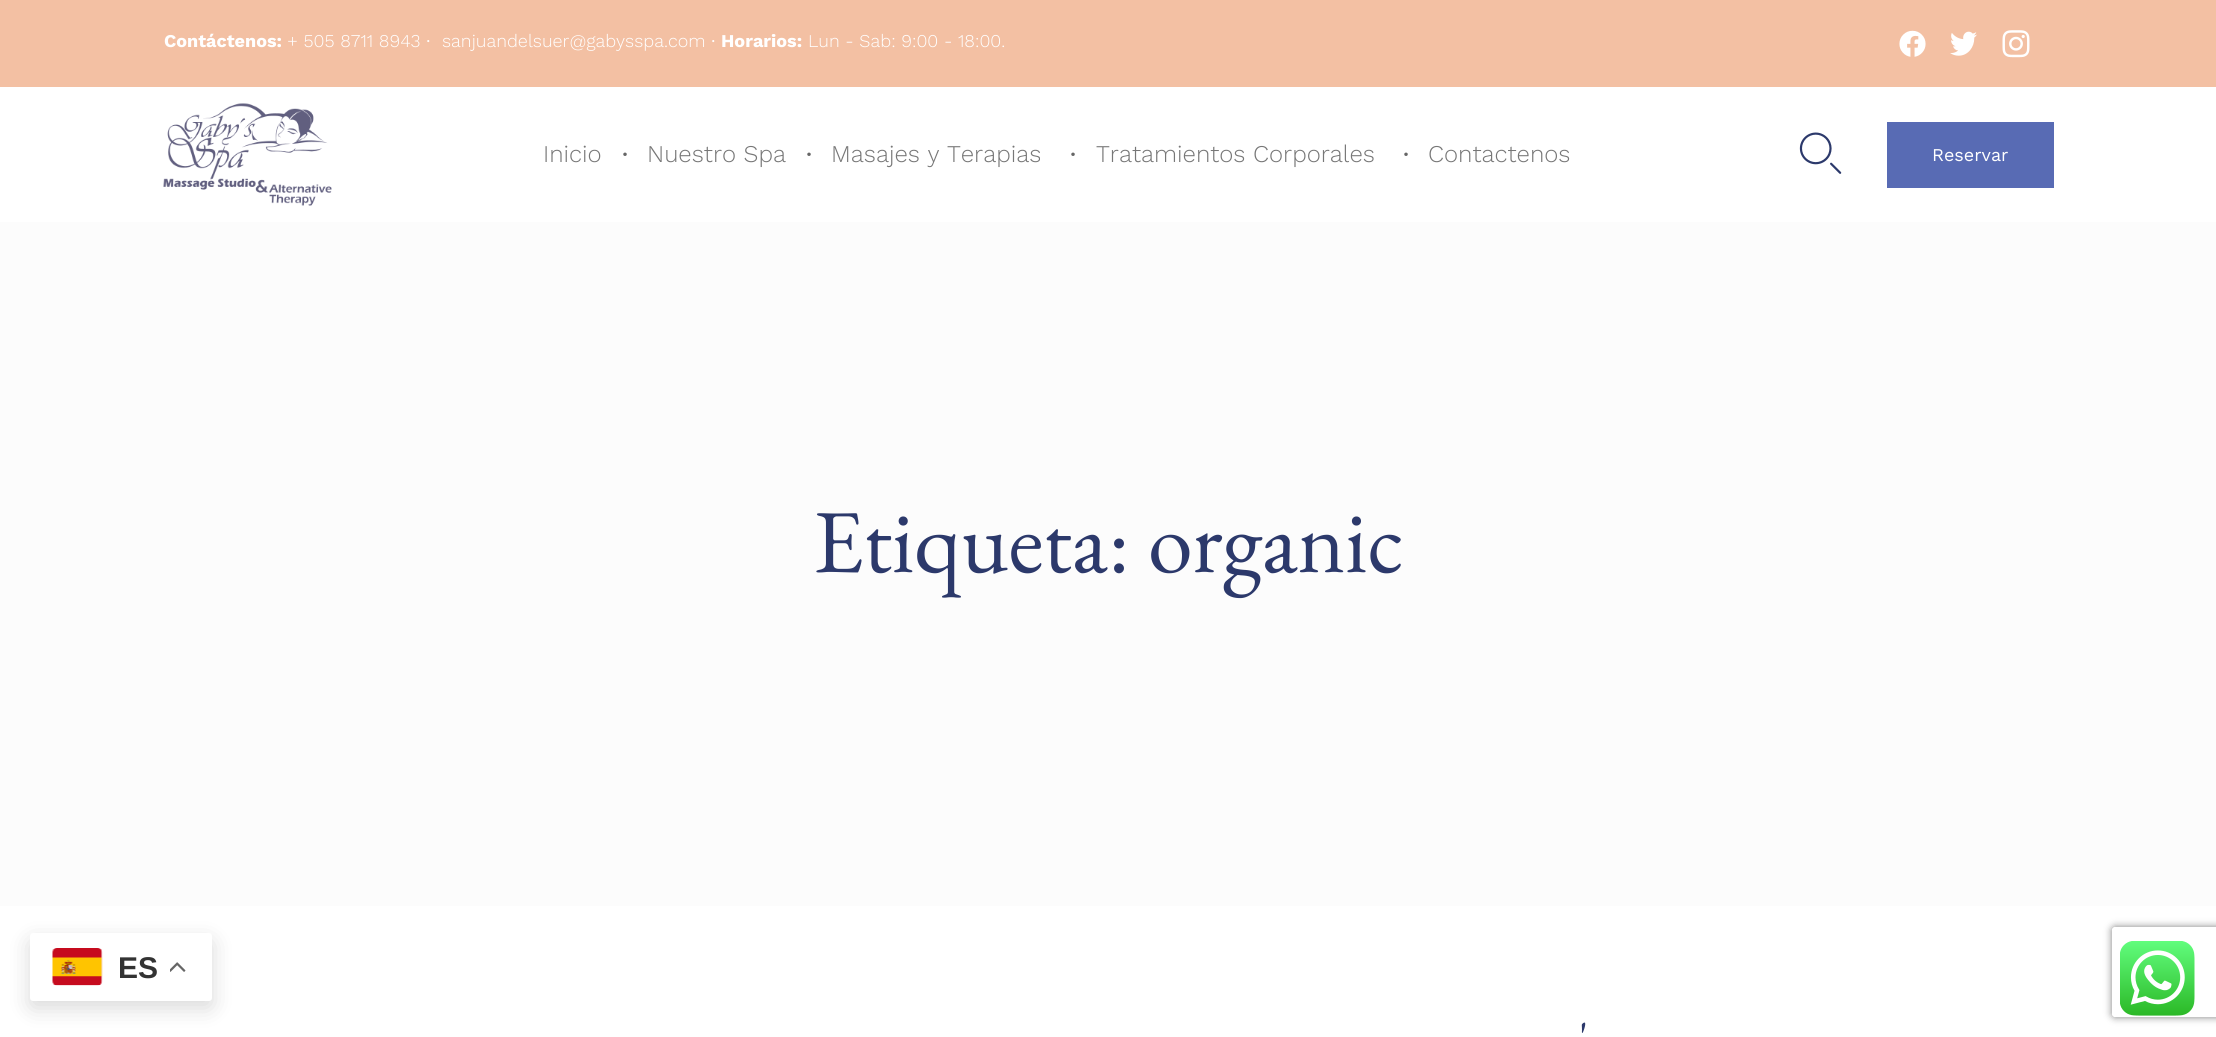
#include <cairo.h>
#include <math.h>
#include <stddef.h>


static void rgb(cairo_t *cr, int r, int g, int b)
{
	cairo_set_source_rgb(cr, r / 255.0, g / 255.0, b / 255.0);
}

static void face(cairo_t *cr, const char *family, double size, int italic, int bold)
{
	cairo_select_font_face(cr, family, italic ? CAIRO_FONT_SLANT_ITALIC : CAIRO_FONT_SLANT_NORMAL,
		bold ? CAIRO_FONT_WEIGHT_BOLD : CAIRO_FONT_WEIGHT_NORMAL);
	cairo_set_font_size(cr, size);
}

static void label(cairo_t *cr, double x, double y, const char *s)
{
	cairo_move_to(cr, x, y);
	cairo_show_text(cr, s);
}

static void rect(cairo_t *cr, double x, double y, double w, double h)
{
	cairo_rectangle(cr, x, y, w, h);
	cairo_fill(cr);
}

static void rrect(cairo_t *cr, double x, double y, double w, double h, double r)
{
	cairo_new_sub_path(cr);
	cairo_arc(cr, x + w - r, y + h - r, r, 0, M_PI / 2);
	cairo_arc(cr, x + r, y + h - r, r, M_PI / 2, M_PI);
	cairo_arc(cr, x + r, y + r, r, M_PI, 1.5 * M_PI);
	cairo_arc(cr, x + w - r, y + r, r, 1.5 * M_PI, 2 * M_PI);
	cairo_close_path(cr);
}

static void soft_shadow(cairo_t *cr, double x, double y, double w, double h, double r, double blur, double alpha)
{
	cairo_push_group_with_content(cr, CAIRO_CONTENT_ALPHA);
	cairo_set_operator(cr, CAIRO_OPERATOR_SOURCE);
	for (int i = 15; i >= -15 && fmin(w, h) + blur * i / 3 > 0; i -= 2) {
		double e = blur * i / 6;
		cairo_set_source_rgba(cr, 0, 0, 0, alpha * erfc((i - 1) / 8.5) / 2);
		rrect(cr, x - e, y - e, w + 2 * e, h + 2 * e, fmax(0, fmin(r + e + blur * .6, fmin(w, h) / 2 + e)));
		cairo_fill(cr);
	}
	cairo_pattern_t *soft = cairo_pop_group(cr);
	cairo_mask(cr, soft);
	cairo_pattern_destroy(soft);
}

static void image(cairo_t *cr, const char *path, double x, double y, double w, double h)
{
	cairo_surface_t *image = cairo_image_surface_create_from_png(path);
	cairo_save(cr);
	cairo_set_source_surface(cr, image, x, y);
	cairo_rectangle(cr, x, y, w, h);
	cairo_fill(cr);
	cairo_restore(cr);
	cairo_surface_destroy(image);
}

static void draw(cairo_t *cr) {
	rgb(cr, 255, 255, 255);
	cairo_paint(cr);
	rgb(cr, 243, 192, 163);
	rect(cr, 0, 0, 2216, 87);
	face(cr, "Work Sans", 18, 0, 1);
	rgb(cr, 255, 255, 255);
	label(cr, 164, 47, "Contáctenos:");
	face(cr, "Work Sans Light", 18, 0, 0);
	label(cr, 287, 47, "+ 505 8711 8943");
	face(cr, "Liberation Serif", 18, 0, 0);
	label(cr, 426, 47, "∙");
	face(cr, "Work Sans Light", 18, 0, 0);
	label(cr, 442, 47, "sanjuandelsuer@gabysspa.com");
	face(cr, "Liberation Serif", 18, 0, 0);
	label(cr, 711, 47, "∙");
	face(cr, "Work Sans", 18, 0, 1);
	label(cr, 721, 47, "Horarios:");
	face(cr, "Work Sans Light", 18, 0, 0);
	label(cr, 808, 47, "Lun - Sab: 9:00 - 18:00.");
	image(cr, "image0.png", 1899, 30, 27, 27);
	image(cr, "image1.png", 1950, 31, 27, 25);
	image(cr, "image2.png", 2002, 30, 28, 28);
	image(cr, "image3.png", 163, 103, 169, 103);
	face(cr, "Work Sans Light", 24, 0, 0);
	rgb(cr, 119, 119, 119);
	label(cr, 543, 162, "Inicio");
	face(cr, "Work Sans", 14, 0, 0);
	rgb(cr, 102, 102, 102);
	label(cr, 622, 159, "•");
	face(cr, "Work Sans Light", 24, 0, 0);
	rgb(cr, 119, 119, 119);
	label(cr, 647, 162, "Nuestro Spa");
	face(cr, "Work Sans", 14, 0, 0);
	rgb(cr, 102, 102, 102);
	label(cr, 806, 159, "•");
	face(cr, "Work Sans Light", 24, 0, 0);
	rgb(cr, 119, 119, 119);
	label(cr, 831, 162, "Masajes y Terapias");
	face(cr, "Work Sans", 14, 0, 0);
	rgb(cr, 102, 102, 102);
	label(cr, 1070, 159, "•");
	face(cr, "Work Sans Light", 24, 0, 0);
	rgb(cr, 119, 119, 119);
	label(cr, 1096, 162, "Tratamientos Corporales");
	face(cr, "Work Sans", 14, 0, 0);
	rgb(cr, 102, 102, 102);
	label(cr, 1403, 159, "•");
	face(cr, "Work Sans Light", 24, 0, 0);
	rgb(cr, 119, 119, 119);
	label(cr, 1428, 162, "Contactenos");
	image(cr, "image4.png", 1799, 132, 43, 42);
	rgb(cr, 88, 107, 180);
	rect(cr, 1887, 122, 167, 66);
	face(cr, "Work Sans", 18, 0, 0);
	rgb(cr, 255, 255, 255);
	label(cr, 1932, 161, "Reservar");
	rgb(cr, 252, 252, 252);
	rect(cr, 0, 222, 2216, 684);
	face(cr, "EB Garamond", 90, 0, 0);
	rgb(cr, 44, 57, 107);
	label(cr, 813, 572, "Etiqueta: organic");
	face(cr, "EB Garamond", 45, 0, 0);
	label(cr, 1579, 1053, "'");
	cairo_save(cr);
	cairo_set_fill_rule(cr, CAIRO_FILL_RULE_EVEN_ODD);
	cairo_new_path(cr);
	cairo_move_to(cr, 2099, 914);
	cairo_line_to(cr, 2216, 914);
	cairo_line_to(cr, 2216, 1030);
	cairo_line_to(cr, 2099, 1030);
	cairo_close_path(cr);
	cairo_move_to(cr, 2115, 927);
	cairo_line_to(cr, 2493, 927);
	cairo_curve_to(cr, 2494.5, 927, 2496, 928.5, 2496, 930);
	cairo_line_to(cr, 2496, 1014);
	cairo_curve_to(cr, 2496, 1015.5, 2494.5, 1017, 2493, 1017);
	cairo_line_to(cr, 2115, 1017);
	cairo_curve_to(cr, 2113.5, 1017, 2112, 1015.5, 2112, 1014);
	cairo_line_to(cr, 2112, 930);
	cairo_curve_to(cr, 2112, 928.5, 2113.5, 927, 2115, 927);
	cairo_close_path(cr);
	cairo_clip(cr);
	rgb(cr, 128, 128, 128);
	soft_shadow(cr, 2112, 927, 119, 90, 3, 4, 1);
	cairo_restore(cr);
	rgb(cr, 0, 0, 0);
	soft_shadow(cr, 30, 941, 182, 67, 3, 11, 0.15);
	rgb(cr, 255, 255, 255);
	rrect(cr, 30, 933, 182, 68, 3);
	cairo_fill(cr);
	image(cr, "image5.png", 52, 948, 51, 38);
	face(cr, "Liberation Sans", 30, 0, 1);
	rgb(cr, 51, 51, 51);
	label(cr, 118, 978, "ES");
	image(cr, "image6.png", 170, 962, 16, 10);
	image(cr, "image7.png", 2120, 941, 75, 75);
}

int main(void) {
	cairo_surface_t *surface = cairo_image_surface_create(CAIRO_FORMAT_RGB24, 2216, 1037);
	cairo_t *cr = cairo_create(surface);
	cairo_font_options_t *options = cairo_font_options_create();
	cairo_font_options_set_hint_metrics(options, CAIRO_HINT_METRICS_OFF);
	cairo_font_options_set_hint_style(options, CAIRO_HINT_STYLE_NONE);
	cairo_set_font_options(cr, options);
	cairo_set_miter_limit(cr, 4);
	draw(cr);
	cairo_surface_write_to_png(surface, "render.png");
	cairo_font_options_destroy(options);
	cairo_destroy(cr);
	cairo_surface_destroy(surface);
	return 0;
}
